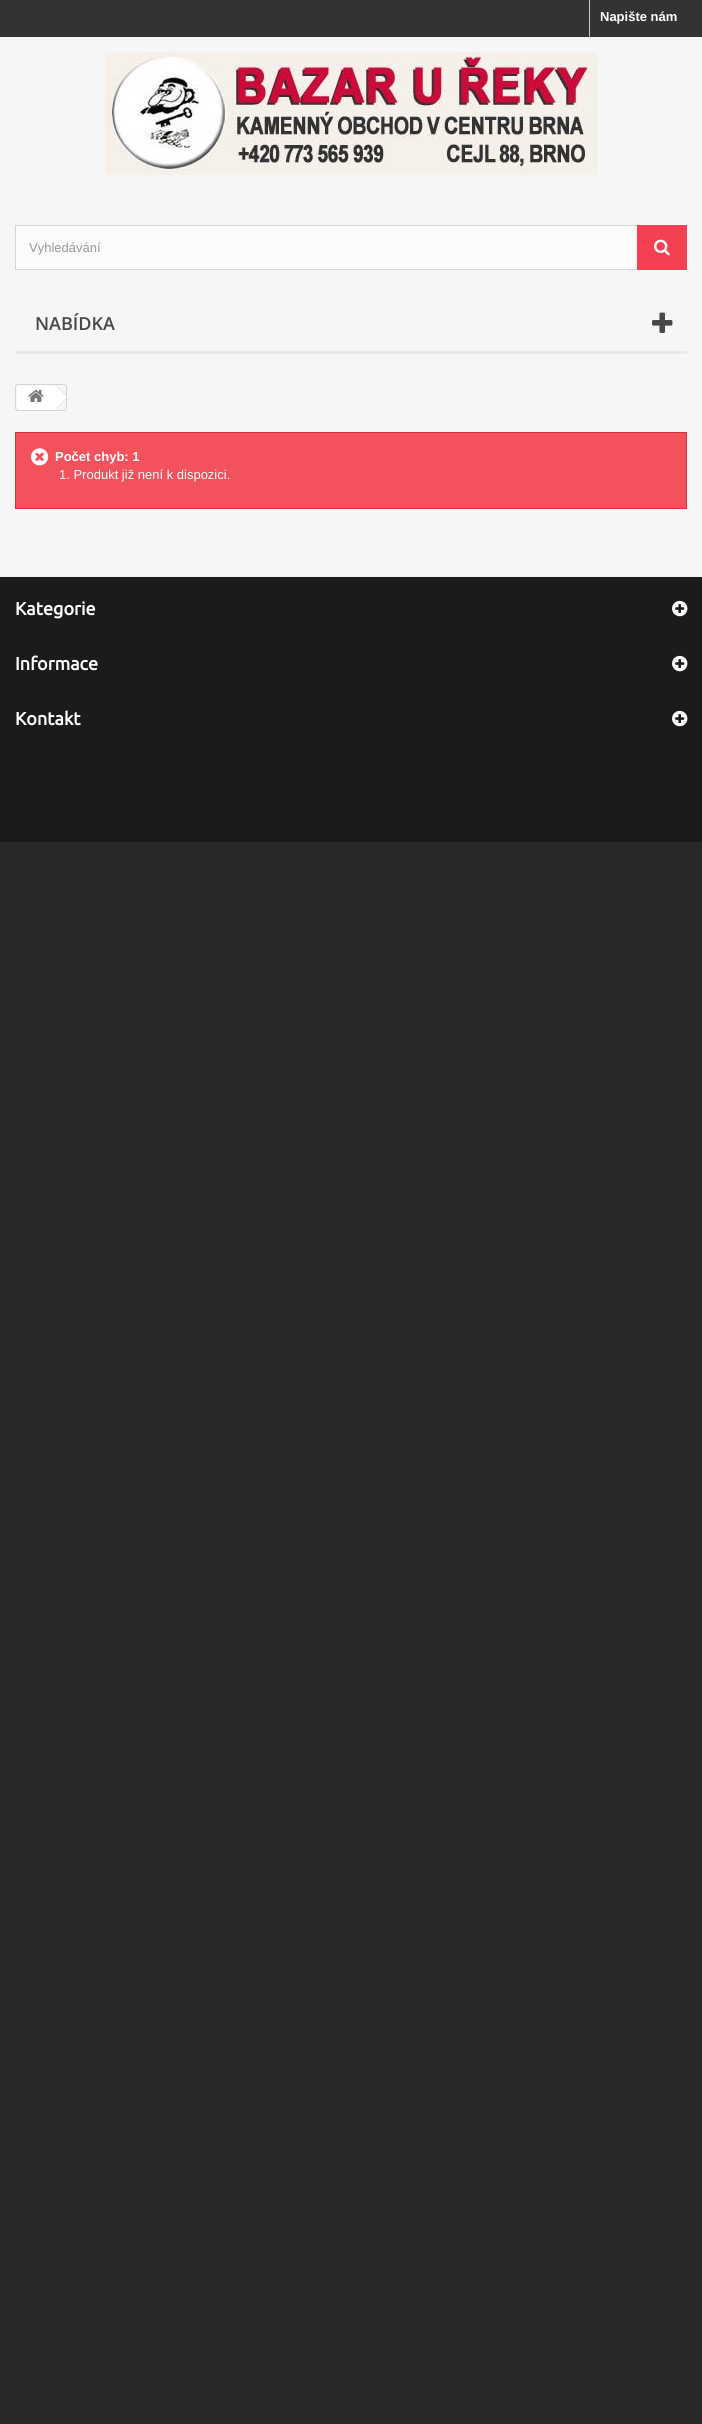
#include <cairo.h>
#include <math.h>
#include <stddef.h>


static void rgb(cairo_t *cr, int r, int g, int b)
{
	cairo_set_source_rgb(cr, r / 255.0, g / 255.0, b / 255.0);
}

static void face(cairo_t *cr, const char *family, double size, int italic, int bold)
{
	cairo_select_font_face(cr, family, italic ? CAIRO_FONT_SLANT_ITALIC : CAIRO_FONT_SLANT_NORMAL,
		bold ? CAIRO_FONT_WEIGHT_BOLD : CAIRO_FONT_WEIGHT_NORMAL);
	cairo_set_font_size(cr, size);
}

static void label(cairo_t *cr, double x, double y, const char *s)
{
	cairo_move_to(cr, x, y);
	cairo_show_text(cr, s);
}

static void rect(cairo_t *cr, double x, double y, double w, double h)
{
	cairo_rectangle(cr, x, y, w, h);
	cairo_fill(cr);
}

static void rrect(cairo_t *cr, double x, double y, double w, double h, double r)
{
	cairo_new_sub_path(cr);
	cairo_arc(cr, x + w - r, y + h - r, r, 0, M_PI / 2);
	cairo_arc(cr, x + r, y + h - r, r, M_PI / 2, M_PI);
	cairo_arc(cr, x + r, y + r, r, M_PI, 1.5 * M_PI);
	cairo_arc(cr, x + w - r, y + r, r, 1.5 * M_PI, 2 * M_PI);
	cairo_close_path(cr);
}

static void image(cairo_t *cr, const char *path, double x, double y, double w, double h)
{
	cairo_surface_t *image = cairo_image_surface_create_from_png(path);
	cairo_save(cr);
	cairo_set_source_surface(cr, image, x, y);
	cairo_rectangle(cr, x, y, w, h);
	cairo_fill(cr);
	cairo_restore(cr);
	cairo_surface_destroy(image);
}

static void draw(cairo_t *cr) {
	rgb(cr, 40, 40, 40);
	cairo_paint(cr);
	rgb(cr, 246, 246, 246);
	rect(cr, 0, 37, 702, 540);
	rgb(cr, 51, 51, 51);
	rect(cr, 0, 0, 702, 37);
	rgb(cr, 198, 198, 198);
	rect(cr, 589, 0, 1, 37);
	face(cr, "Liberation Sans", 13, 0, 1);
	rgb(cr, 255, 255, 255);
	label(cr, 600, 21, "Napište nám");
	image(cr, "image0.png", 105, 52, 492, 123);
	rgb(cr, 251, 251, 251);
	rect(cr, 16, 226, 621, 43);
	cairo_rectangle(cr, 15.5, 225.5, 671, 44);
	rgb(cr, 214, 212, 212);
	cairo_set_line_width(cr, 1);
	cairo_stroke(cr);
	face(cr, "Liberation Sans", 13, 0, 0);
	rgb(cr, 153, 153, 153);
	label(cr, 29, 252, "Vyhledávání");
	rgb(cr, 244, 64, 81);
	rect(cr, 637, 225, 50, 45);
	image(cr, "image1.png", 654, 239, 16, 17);
	rgb(cr, 233, 233, 233);
	rect(cr, 15, 351, 672, 3);
	face(cr, "Open Sans SemiBold", 18, 0, 0);
	rgb(cr, 72, 72, 72);
	label(cr, 35, 330, "NABÍDKA");
	image(cr, "image2.png", 652, 312, 21, 21);
	rrect(cr, 15.5, 384.5, 51, 26, 2.5);
	rgb(cr, 214, 212, 212);
	cairo_stroke(cr);
	rgb(cr, 255, 255, 255);
	cairo_new_path(cr);
	cairo_move_to(cr, 20, 385);
	cairo_line_to(cr, 55, 385);
	cairo_line_to(cr, 55, 410);
	cairo_line_to(cr, 20, 410);
	cairo_curve_to(cr, 18.5, 410, 17, 408.5, 17, 407);
	cairo_line_to(cr, 17, 388);
	cairo_curve_to(cr, 17, 386.5, 18.5, 385, 20, 385);
	cairo_close_path(cr);
	cairo_fill(cr);
	image(cr, "image3.png", 28, 389, 16, 13);
	cairo_new_path(cr);
	cairo_move_to(cr, 57.5, 385.5);
	cairo_line_to(cr, 66, 394);
	cairo_line_to(cr, 66, 400);
	cairo_line_to(cr, 57.5, 408.5);
	cairo_curve_to(cr, 56.5, 409, 55.5, 409, 54.5, 408.5);
	cairo_line_to(cr, 44.5, 398.5);
	cairo_curve_to(cr, 44, 397.5, 44, 396.5, 44.5, 395.5);
	cairo_line_to(cr, 54.5, 385.5);
	cairo_curve_to(cr, 55.5, 385, 56.5, 385, 57.5, 385.5);
	cairo_close_path(cr);
	cairo_fill(cr);
	rgb(cr, 214, 212, 212);
	cairo_new_path(cr);
	cairo_move_to(cr, 56.5, 385);
	cairo_line_to(cr, 66, 394.5);
	cairo_line_to(cr, 66, 395.5);
	cairo_line_to(cr, 56, 385.5);
	cairo_close_path(cr);
	cairo_move_to(cr, 66, 398.5);
	cairo_line_to(cr, 66, 399.5);
	cairo_line_to(cr, 56.5, 409);
	cairo_line_to(cr, 56, 408.5);
	cairo_close_path(cr);
	cairo_fill(cr);
	rgb(cr, 243, 81, 92);
	cairo_rectangle(cr, 15.5, 432.5, 671, 76);
	cairo_fill_preserve(cr);
	rgb(cr, 212, 50, 61);
	cairo_stroke(cr);
	image(cr, "image4.png", 31, 448, 18, 18);
	face(cr, "Liberation Sans", 13, 0, 1);
	rgb(cr, 255, 255, 255);
	label(cr, 55, 461, "Počet chyb: 1");
	face(cr, "Liberation Sans", 13, 0, 0);
	label(cr, 59, 479, "1. Produkt již není k dispozici.");
	rgb(cr, 27, 27, 27);
	rect(cr, 0, 577, 702, 265);
	face(cr, "Ubuntu", 18, 0, 1);
	rgb(cr, 255, 255, 255);
	label(cr, 15, 615, "Kategorie");
	image(cr, "image5.png", 672, 600, 16, 17);
	label(cr, 15, 670, "Informace");
	image(cr, "image5.png", 672, 655, 16, 17);
	label(cr, 15, 725, "Kontakt");
	image(cr, "image5.png", 672, 710, 16, 17);
}

int main(void) {
	cairo_surface_t *surface = cairo_image_surface_create(CAIRO_FORMAT_RGB24, 702, 2424);
	cairo_t *cr = cairo_create(surface);
	cairo_font_options_t *options = cairo_font_options_create();
	cairo_font_options_set_hint_metrics(options, CAIRO_HINT_METRICS_OFF);
	cairo_font_options_set_hint_style(options, CAIRO_HINT_STYLE_NONE);
	cairo_set_font_options(cr, options);
	cairo_set_miter_limit(cr, 4);
	draw(cr);
	cairo_surface_write_to_png(surface, "render.png");
	cairo_font_options_destroy(options);
	cairo_destroy(cr);
	cairo_surface_destroy(surface);
	return 0;
}
